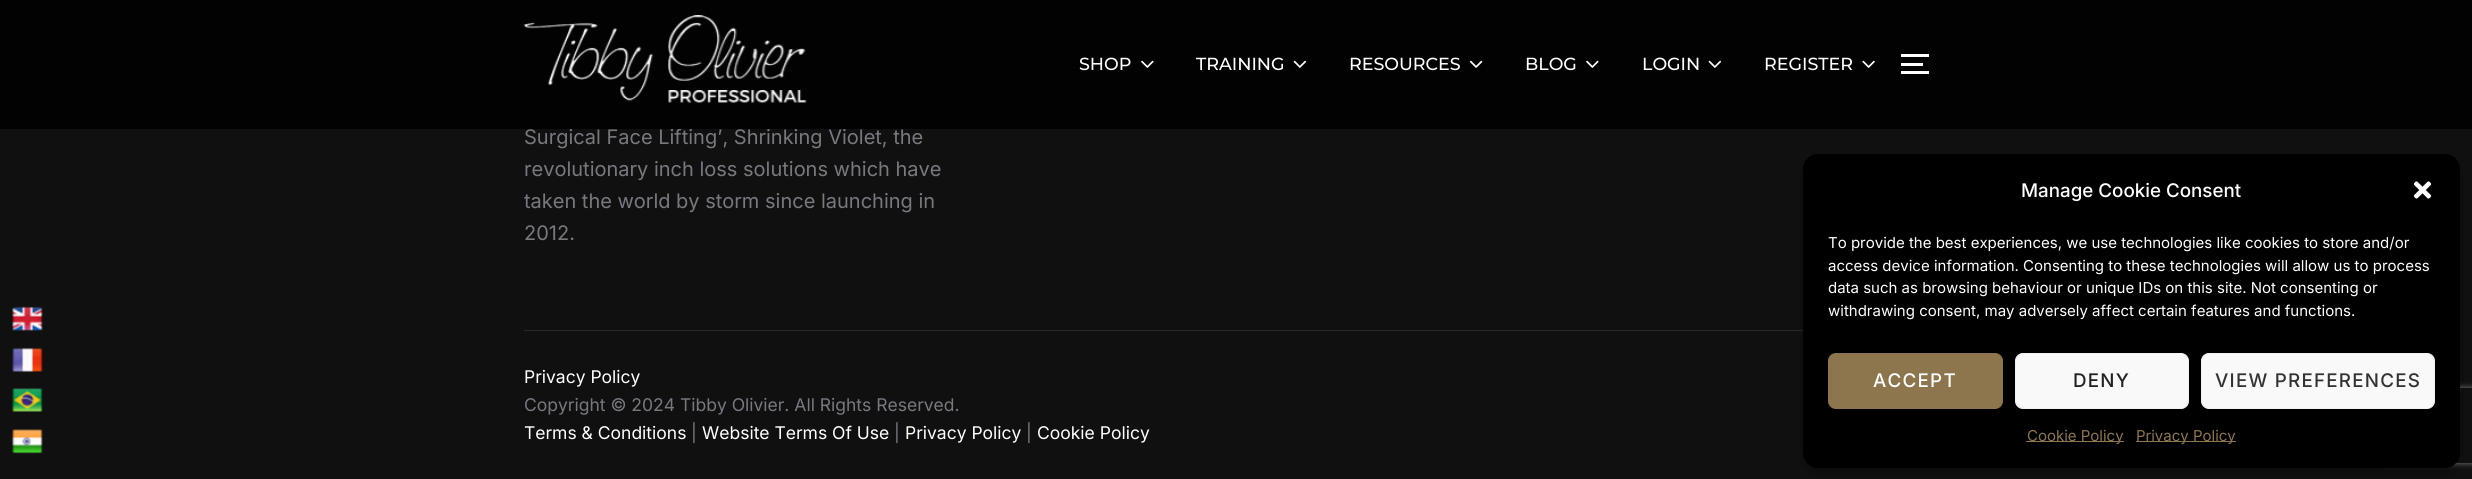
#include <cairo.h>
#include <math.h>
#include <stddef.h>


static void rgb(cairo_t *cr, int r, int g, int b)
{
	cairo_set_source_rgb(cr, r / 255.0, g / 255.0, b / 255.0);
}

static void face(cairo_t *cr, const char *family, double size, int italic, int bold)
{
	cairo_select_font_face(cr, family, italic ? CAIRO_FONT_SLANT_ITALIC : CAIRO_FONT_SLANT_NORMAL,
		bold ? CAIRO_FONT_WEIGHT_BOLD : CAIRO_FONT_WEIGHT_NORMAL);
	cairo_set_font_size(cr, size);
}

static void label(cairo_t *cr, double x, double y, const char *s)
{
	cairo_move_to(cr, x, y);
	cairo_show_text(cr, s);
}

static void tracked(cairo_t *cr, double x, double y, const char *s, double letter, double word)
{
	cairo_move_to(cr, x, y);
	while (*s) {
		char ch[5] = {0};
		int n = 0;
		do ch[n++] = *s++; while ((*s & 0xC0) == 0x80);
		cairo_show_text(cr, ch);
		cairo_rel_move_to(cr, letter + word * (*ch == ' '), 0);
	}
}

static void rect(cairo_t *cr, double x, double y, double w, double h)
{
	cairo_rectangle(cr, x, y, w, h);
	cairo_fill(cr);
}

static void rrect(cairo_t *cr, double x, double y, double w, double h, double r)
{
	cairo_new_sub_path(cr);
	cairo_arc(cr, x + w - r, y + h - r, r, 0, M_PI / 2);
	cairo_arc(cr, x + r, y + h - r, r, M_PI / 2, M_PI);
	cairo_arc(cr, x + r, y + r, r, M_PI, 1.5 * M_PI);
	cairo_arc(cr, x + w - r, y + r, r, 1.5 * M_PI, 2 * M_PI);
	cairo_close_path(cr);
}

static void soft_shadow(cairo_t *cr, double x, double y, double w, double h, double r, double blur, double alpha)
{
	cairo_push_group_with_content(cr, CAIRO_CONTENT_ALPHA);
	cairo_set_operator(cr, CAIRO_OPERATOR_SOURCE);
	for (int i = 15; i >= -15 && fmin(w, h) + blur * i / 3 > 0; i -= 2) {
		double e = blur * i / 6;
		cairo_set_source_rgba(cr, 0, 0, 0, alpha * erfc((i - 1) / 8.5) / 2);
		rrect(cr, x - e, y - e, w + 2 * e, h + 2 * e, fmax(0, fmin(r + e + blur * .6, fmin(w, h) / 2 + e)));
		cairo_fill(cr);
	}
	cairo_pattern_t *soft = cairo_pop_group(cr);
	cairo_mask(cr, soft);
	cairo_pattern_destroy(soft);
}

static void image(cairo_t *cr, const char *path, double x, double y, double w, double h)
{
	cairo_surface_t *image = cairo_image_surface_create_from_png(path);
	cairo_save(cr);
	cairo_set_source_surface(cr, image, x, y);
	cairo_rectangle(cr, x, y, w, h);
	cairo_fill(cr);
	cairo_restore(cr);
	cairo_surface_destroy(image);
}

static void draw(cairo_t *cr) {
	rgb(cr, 16, 16, 16);
	cairo_paint(cr);
	image(cr, "image0.png", 12, 306, 31, 25);
	image(cr, "image1.png", 12, 347, 31, 25);
	image(cr, "image2.png", 12, 388, 31, 24);
	image(cr, "image3.png", 12, 429, 31, 25);
	face(cr, "Inter", 20, 0, 0);
	rgb(cr, 120, 120, 127);
	label(cr, 524, 144, "Surgical Face Lifting’, Shrinking Violet, the");
	cairo_set_source_rgba(cr, 0, 0, 0, 0.9);
	rect(cr, 0, 0, 2472, 129);
	image(cr, "image4.png", 523, 15, 284, 88);
	face(cr, "Montserrat Medium", 17.5, 0, 0);
	rgb(cr, 255, 255, 255);
	label(cr, 1079, 70, "SHOP");
	image(cr, "image5.png", 1141, 60, 13, 8);
	label(cr, 1196, 70, "TRAINING");
	image(cr, "image6.png", 1293, 60, 14, 8);
	label(cr, 1349, 70, "RESOURCES");
	image(cr, "image7.png", 1469, 60, 14, 8);
	label(cr, 1525, 70, "BLOG");
	image(cr, "image5.png", 1586, 60, 13, 8);
	label(cr, 1642, 70, "LOGIN");
	image(cr, "image6.png", 1708, 60, 14, 8);
	label(cr, 1764, 70, "REGISTER");
	image(cr, "image8.png", 1862, 60, 13, 8);
	rect(cr, 1901, 54, 28, 3);
	rect(cr, 1901, 63, 22, 3);
	rect(cr, 1901, 71, 28, 3);
	face(cr, "Inter", 20, 0, 0);
	rgb(cr, 120, 120, 127);
	label(cr, 524, 176, "revolutionary inch loss solutions which have");
	label(cr, 524, 208, "taken the world by storm since launching in");
	label(cr, 524, 240, "2012.");
	rgb(cr, 40, 40, 40);
	rect(cr, 524, 330, 1279, 1);
	face(cr, "Inter", 17.5, 0, 0);
	rgb(cr, 255, 255, 255);
	label(cr, 524, 383, "Privacy Policy");
	rgb(cr, 120, 120, 127);
	label(cr, 524, 411, "Copyright © 2024 Tibby Olivier. All Rights Reserved.");
	rgb(cr, 255, 255, 255);
	label(cr, 524, 439, "Terms & Conditions");
	rgb(cr, 120, 120, 127);
	label(cr, 691, 439, "|");
	rgb(cr, 255, 255, 255);
	label(cr, 702, 439, "Website Terms Of Use");
	rgb(cr, 120, 120, 127);
	label(cr, 894, 439, "|");
	rgb(cr, 255, 255, 255);
	label(cr, 905, 439, "Privacy Policy");
	rgb(cr, 120, 120, 127);
	label(cr, 1026, 439, "|");
	rgb(cr, 255, 255, 255);
	label(cr, 1037, 439, "Cookie Policy");
	rgb(cr, 0, 0, 0);
	soft_shadow(cr, 1803, 161, 657, 314, 15, 4, 0.23);
	cairo_save(cr);
	cairo_set_fill_rule(cr, CAIRO_FILL_RULE_EVEN_ODD);
	cairo_new_path(cr);
	cairo_move_to(cr, 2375, 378);
	cairo_line_to(cr, 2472, 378);
	cairo_line_to(cr, 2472, 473);
	cairo_line_to(cr, 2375, 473);
	cairo_close_path(cr);
	cairo_move_to(cr, 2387.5, 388);
	cairo_line_to(cr, 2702.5, 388);
	cairo_curve_to(cr, 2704, 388, 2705, 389, 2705, 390.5);
	cairo_line_to(cr, 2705, 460.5);
	cairo_curve_to(cr, 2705, 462, 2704, 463, 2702.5, 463);
	cairo_line_to(cr, 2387.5, 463);
	cairo_curve_to(cr, 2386, 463, 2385, 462, 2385, 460.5);
	cairo_line_to(cr, 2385, 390.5);
	cairo_curve_to(cr, 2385, 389, 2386, 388, 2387.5, 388);
	cairo_close_path(cr);
	cairo_clip(cr);
	rgb(cr, 128, 128, 128);
	soft_shadow(cr, 2385, 388, 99, 75, 2.5, 3, 1);
	cairo_restore(cr);
	rgb(cr, 0, 0, 0);
	rrect(cr, 1803, 154, 657, 314, 15);
	cairo_fill(cr);
	face(cr, "Inter Medium", 18.75, 0, 0);
	rgb(cr, 255, 255, 255);
	label(cr, 2021, 197, "Manage Cookie Consent");
	image(cr, "image9.png", 2413, 181, 19, 18);
	face(cr, "Inter", 15, 0, 0);
	label(cr, 1828, 248, "To provide the best experiences, we use technologies like cookies to store and/or");
	label(cr, 1828, 271, "access device information. Consenting to these technologies will allow us to process");
	label(cr, 1828, 293, "data such as browsing behaviour or unique IDs on this site. Not consenting or");
	label(cr, 1828, 316, "withdrawing consent, may adversely affect certain features and functions.");
	rgb(cr, 141, 118, 77);
	rrect(cr, 1828.5, 353.5, 174, 55, 7.5);
	cairo_fill_preserve(cr);
	cairo_set_line_width(cr, 1);
	cairo_stroke(cr);
	face(cr, "Inter Medium", 18.75, 0, 0);
	rgb(cr, 255, 255, 255);
	tracked(cr, 1873, 387, "ACCEPT", 1.25, 0);
	rgb(cr, 249, 249, 249);
	rrect(cr, 2015.5, 353.5, 173, 55, 7.5);
	cairo_fill_preserve(cr);
	rgb(cr, 242, 242, 242);
	cairo_stroke(cr);
	rgb(cr, 34, 34, 34);
	tracked(cr, 2073, 387, "DENY", 1.25, 0);
	rgb(cr, 249, 249, 249);
	rrect(cr, 2201.5, 353.5, 233, 55, 7.5);
	cairo_fill_preserve(cr);
	rgb(cr, 242, 242, 242);
	cairo_stroke(cr);
	rgb(cr, 51, 51, 51);
	tracked(cr, 2215, 387, "VIEW PREFERENCES", 1.25, 0);
	rgb(cr, 141, 118, 77);
	rect(cr, 2026, 441, 98, 1);
	face(cr, "Inter", 15, 0, 0);
	label(cr, 2027, 441, "Cookie Policy");
	rect(cr, 2136, 441, 100, 1);
	label(cr, 2136, 441, "Privacy Policy");
}

int main(void) {
	cairo_surface_t *surface = cairo_image_surface_create(CAIRO_FORMAT_RGB24, 2472, 479);
	cairo_t *cr = cairo_create(surface);
	cairo_font_options_t *options = cairo_font_options_create();
	cairo_font_options_set_hint_metrics(options, CAIRO_HINT_METRICS_OFF);
	cairo_font_options_set_hint_style(options, CAIRO_HINT_STYLE_NONE);
	cairo_set_font_options(cr, options);
	cairo_set_miter_limit(cr, 4);
	draw(cr);
	cairo_surface_write_to_png(surface, "render.png");
	cairo_font_options_destroy(options);
	cairo_destroy(cr);
	cairo_surface_destroy(surface);
	return 0;
}
